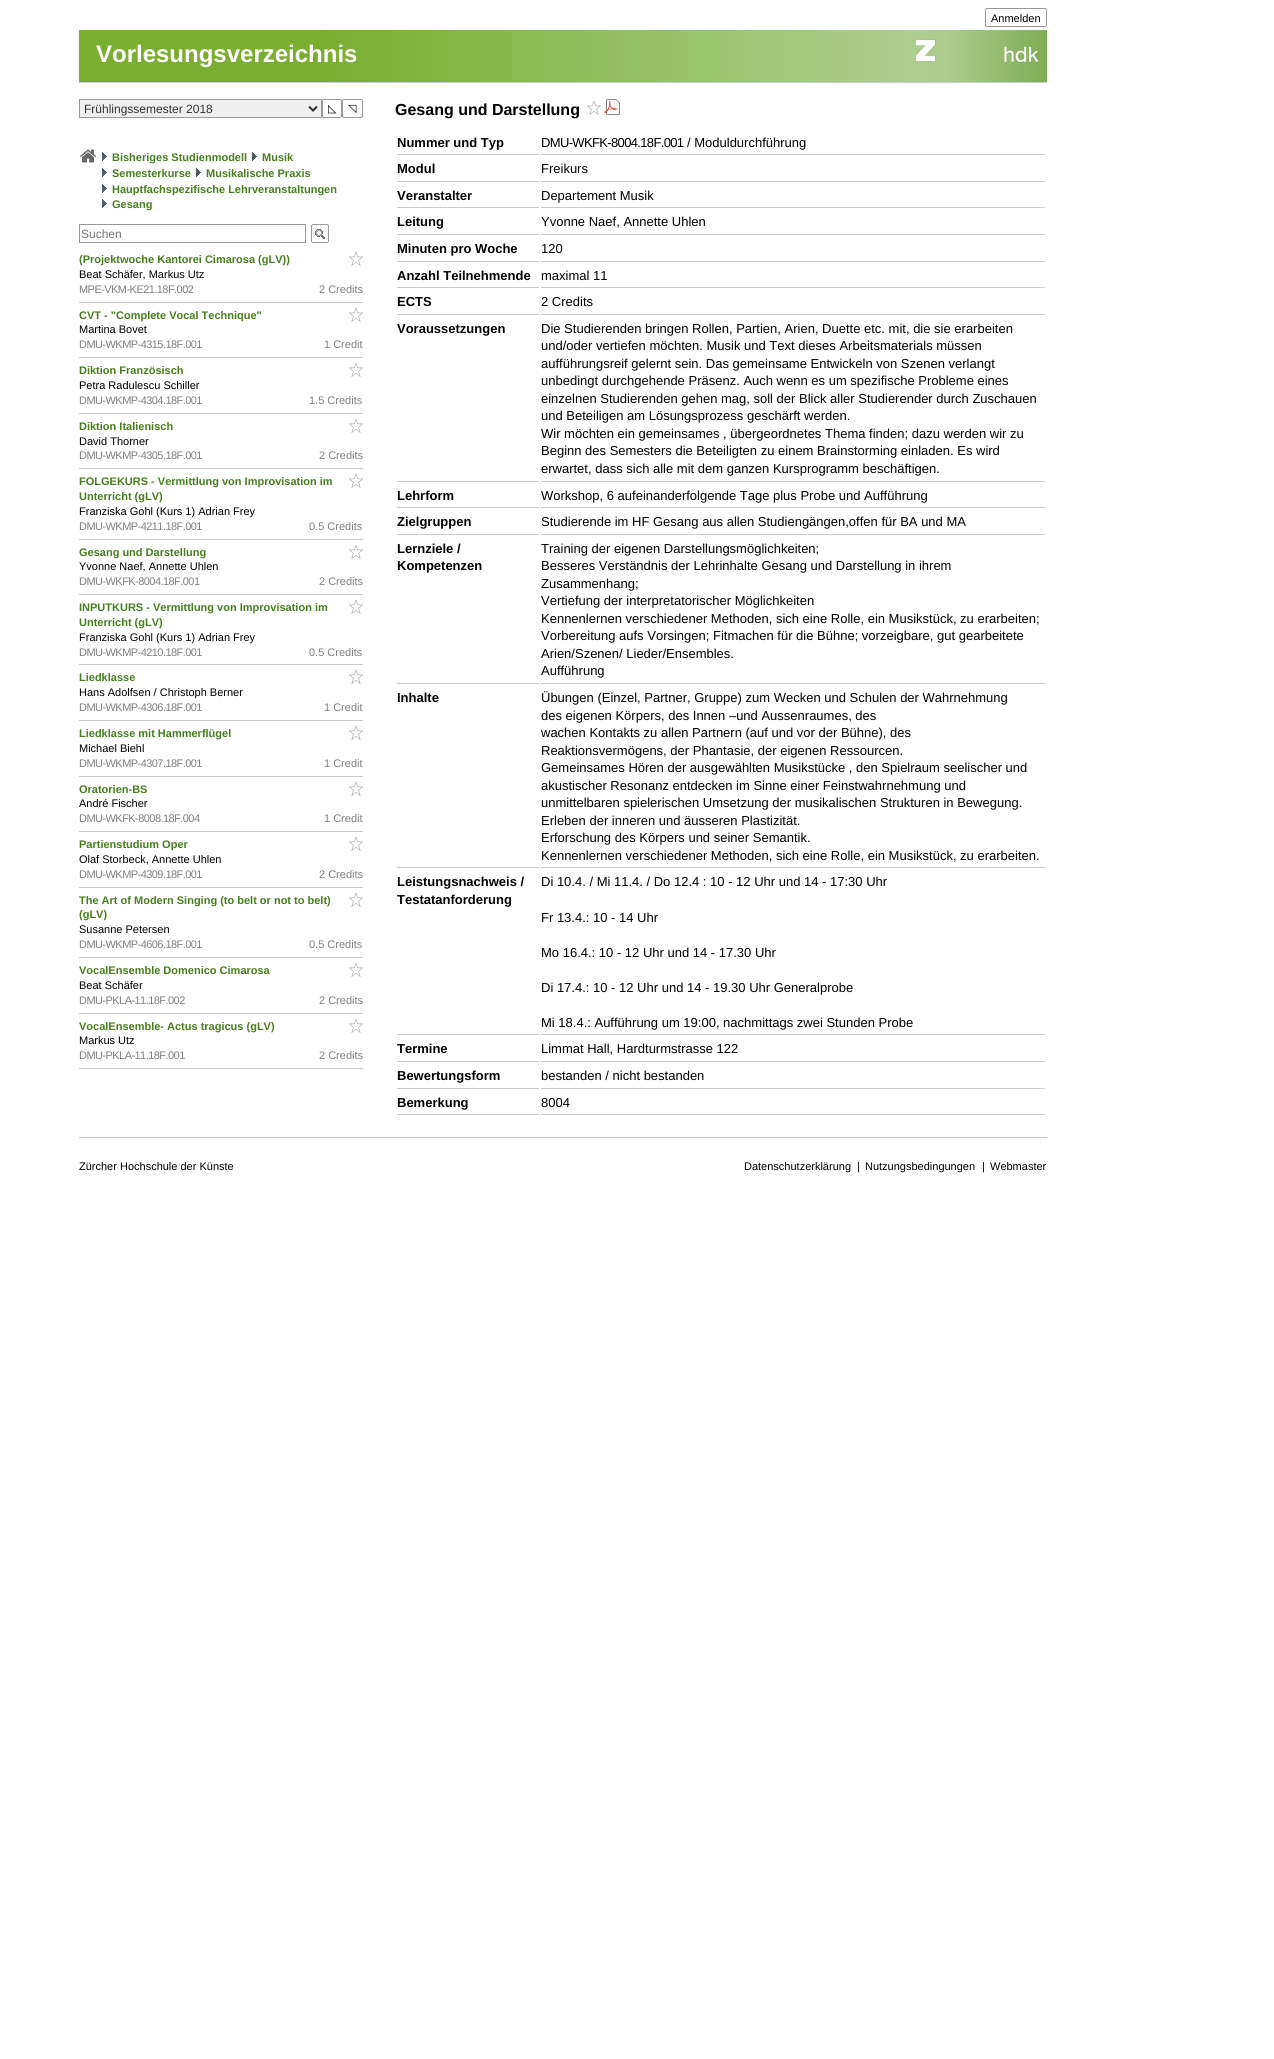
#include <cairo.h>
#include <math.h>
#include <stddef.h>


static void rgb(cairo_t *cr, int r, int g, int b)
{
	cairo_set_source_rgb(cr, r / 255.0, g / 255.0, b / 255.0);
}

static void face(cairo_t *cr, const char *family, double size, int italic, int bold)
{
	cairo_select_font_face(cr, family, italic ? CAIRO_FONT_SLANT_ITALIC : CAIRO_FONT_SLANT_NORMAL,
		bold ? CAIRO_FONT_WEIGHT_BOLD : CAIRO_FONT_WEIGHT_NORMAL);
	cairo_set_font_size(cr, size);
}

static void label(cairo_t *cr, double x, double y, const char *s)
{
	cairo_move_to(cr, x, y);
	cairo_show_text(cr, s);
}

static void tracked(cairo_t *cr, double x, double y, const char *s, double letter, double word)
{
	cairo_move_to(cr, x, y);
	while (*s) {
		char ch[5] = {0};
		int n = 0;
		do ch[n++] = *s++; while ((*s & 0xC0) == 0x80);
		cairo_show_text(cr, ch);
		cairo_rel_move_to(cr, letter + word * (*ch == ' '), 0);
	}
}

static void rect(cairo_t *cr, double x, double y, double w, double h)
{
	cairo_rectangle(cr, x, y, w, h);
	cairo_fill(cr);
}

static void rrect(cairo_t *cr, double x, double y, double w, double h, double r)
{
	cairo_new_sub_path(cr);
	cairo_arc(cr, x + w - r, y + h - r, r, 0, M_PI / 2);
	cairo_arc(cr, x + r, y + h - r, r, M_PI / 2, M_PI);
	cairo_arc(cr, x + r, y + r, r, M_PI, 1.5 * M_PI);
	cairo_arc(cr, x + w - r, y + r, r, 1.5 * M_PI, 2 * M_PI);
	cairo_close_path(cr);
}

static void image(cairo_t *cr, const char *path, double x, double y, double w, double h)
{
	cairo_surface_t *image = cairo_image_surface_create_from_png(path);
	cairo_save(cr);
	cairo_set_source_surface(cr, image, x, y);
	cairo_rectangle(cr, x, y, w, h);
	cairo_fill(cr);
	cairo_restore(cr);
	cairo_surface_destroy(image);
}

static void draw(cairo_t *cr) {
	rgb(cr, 255, 255, 255);
	cairo_paint(cr);
	rrect(cr, 985.5, 8.5, 61, 18, 1.5);
	rgb(cr, 153, 153, 153);
	cairo_set_line_width(cr, 1);
	cairo_stroke(cr);
	face(cr, "Liberation Sans", 11, 0, 0);
	rgb(cr, 0, 0, 0);
	label(cr, 991, 22, "Anmelden");
	image(cr, "image0.png", 79, 30, 968, 52);
	image(cr, "image1.png", 916, 39, 122, 23);
	face(cr, "Liberation Sans", 24, 0, 1);
	rgb(cr, 255, 255, 255);
	label(cr, 96, 62, "Vorlesungsverzeichnis");
	rgb(cr, 204, 204, 204);
	rect(cr, 79, 82, 968, 1);
	rgb(cr, 239, 239, 239);
	cairo_rectangle(cr, 79.5, 99.5, 242, 18);
	cairo_fill_preserve(cr);
	rgb(cr, 153, 153, 153);
	cairo_stroke(cr);
	cairo_new_path(cr);
	cairo_move_to(cr, 309, 106.5);
	cairo_line_to(cr, 313, 110.5);
	cairo_line_to(cr, 317, 106.5);
	rgb(cr, 51, 51, 51);
	cairo_set_line_width(cr, 2);
	cairo_stroke(cr);
	face(cr, "Liberation Sans", 12, 0, 0);
	label(cr, 84, 113, "Frühlingssemester 2018");
	rrect(cr, 322.5, 99.5, 19, 18, 1.5);
	rgb(cr, 153, 153, 153);
	cairo_set_line_width(cr, 1);
	cairo_stroke(cr);
	face(cr, "DejaVu Sans", 11, 0, 0);
	rgb(cr, 0, 0, 0);
	label(cr, 328, 112, "◺");
	rrect(cr, 342.5, 99.5, 20, 18, 1.5);
	rgb(cr, 153, 153, 153);
	cairo_stroke(cr);
	rgb(cr, 0, 0, 0);
	label(cr, 348, 112, "◹");
	image(cr, "image2.png", 80, 149, 16, 14);
	image(cr, "image3.png", 102, 152, 5, 9);
	face(cr, "Liberation Sans", 11, 0, 1);
	rgb(cr, 71, 126, 30);
	label(cr, 112, 161, "Bisheriges Studienmodell");
	image(cr, "image3.png", 252, 152, 5, 9);
	label(cr, 262, 161, "Musik");
	image(cr, "image3.png", 102, 168, 5, 9);
	label(cr, 112, 177, "Semesterkurse");
	image(cr, "image3.png", 196, 168, 5, 9);
	label(cr, 206, 177, "Musikalische Praxis");
	image(cr, "image3.png", 102, 184, 5, 9);
	label(cr, 112, 193, "Hauptfachspezifische Lehrveranstaltungen");
	image(cr, "image3.png", 102, 199, 5, 9);
	label(cr, 112, 208, "Gesang");
	cairo_rectangle(cr, 79.5, 224.5, 226, 18);
	rgb(cr, 153, 153, 153);
	cairo_stroke(cr);
	face(cr, "Liberation Sans", 12, 0, 0);
	rgb(cr, 117, 117, 117);
	label(cr, 81, 238, "Suchen");
	image(cr, "image4.png", 315, 229, 10, 10);
	rrect(cr, 311.5, 224.5, 17, 18, 1.5);
	rgb(cr, 153, 153, 153);
	cairo_stroke(cr);
	rgb(cr, 204, 204, 204);
	rect(cr, 79, 302, 284, 1);
	face(cr, "Liberation Sans", 11, 0, 1);
	rgb(cr, 71, 126, 30);
	label(cr, 79, 263, "(Projektwoche Kantorei Cimarosa (gLV))");
	image(cr, "image5.png", 349, 252, 14, 14);
	face(cr, "Liberation Sans", 11, 0, 0);
	rgb(cr, 0, 0, 0);
	label(cr, 79, 278, "Beat Schäfer, Markus Utz");
	rgb(cr, 128, 128, 128);
	tracked(cr, 79, 293, "MPE-VKM-KE21.18F.002", -0.55, 0);
	label(cr, 319, 293, "2 Credits");
	rgb(cr, 204, 204, 204);
	rect(cr, 79, 357, 284, 1);
	face(cr, "Liberation Sans", 11, 0, 1);
	rgb(cr, 71, 126, 30);
	label(cr, 79, 319, "CVT - \"Complete Vocal Technique\"");
	image(cr, "image5.png", 349, 308, 14, 14);
	face(cr, "Liberation Sans", 11, 0, 0);
	rgb(cr, 0, 0, 0);
	label(cr, 79, 333, "Martina Bovet");
	rgb(cr, 128, 128, 128);
	tracked(cr, 79, 348, "DMU-WKMP-4315.18F.001", -0.55, 0);
	label(cr, 324, 348, "1 Credit");
	rgb(cr, 204, 204, 204);
	rect(cr, 79, 413, 284, 1);
	face(cr, "Liberation Sans", 11, 0, 1);
	rgb(cr, 71, 126, 30);
	label(cr, 79, 374, "Diktion Französisch");
	image(cr, "image5.png", 349, 363, 14, 14);
	face(cr, "Liberation Sans", 11, 0, 0);
	rgb(cr, 0, 0, 0);
	label(cr, 79, 389, "Petra Radulescu Schiller");
	rgb(cr, 128, 128, 128);
	tracked(cr, 79, 404, "DMU-WKMP-4304.18F.001", -0.55, 0);
	label(cr, 309, 404, "1.5 Credits");
	rgb(cr, 204, 204, 204);
	rect(cr, 79, 468, 284, 1);
	face(cr, "Liberation Sans", 11, 0, 1);
	rgb(cr, 71, 126, 30);
	label(cr, 79, 430, "Diktion Italienisch");
	image(cr, "image5.png", 349, 419, 14, 14);
	face(cr, "Liberation Sans", 11, 0, 0);
	rgb(cr, 0, 0, 0);
	label(cr, 79, 445, "David Thorner");
	rgb(cr, 128, 128, 128);
	tracked(cr, 79, 459, "DMU-WKMP-4305.18F.001", -0.55, 0);
	label(cr, 319, 459, "2 Credits");
	rgb(cr, 204, 204, 204);
	rect(cr, 79, 539, 284, 1);
	face(cr, "Liberation Sans", 11, 0, 1);
	rgb(cr, 71, 126, 30);
	label(cr, 79, 485, "FOLGEKURS - Vermittlung von Improvisation im");
	image(cr, "image5.png", 349, 474, 14, 14);
	label(cr, 79, 500, "Unterricht (gLV)");
	face(cr, "Liberation Sans", 11, 0, 0);
	rgb(cr, 0, 0, 0);
	label(cr, 79, 515, "Franziska Gohl (Kurs 1) Adrian Frey");
	rgb(cr, 128, 128, 128);
	tracked(cr, 79, 530, "DMU-WKMP-4211.18F.001", -0.55, 0);
	label(cr, 309, 530, "0.5 Credits");
	rgb(cr, 204, 204, 204);
	rect(cr, 79, 594, 284, 1);
	face(cr, "Liberation Sans", 11, 0, 1);
	rgb(cr, 71, 126, 30);
	label(cr, 79, 556, "Gesang und Darstellung");
	image(cr, "image5.png", 349, 545, 14, 14);
	face(cr, "Liberation Sans", 11, 0, 0);
	rgb(cr, 0, 0, 0);
	label(cr, 79, 570, "Yvonne Naef, Annette Uhlen");
	rgb(cr, 128, 128, 128);
	tracked(cr, 79, 585, "DMU-WKFK-8004.18F.001", -0.55, 0);
	label(cr, 319, 585, "2 Credits");
	rgb(cr, 204, 204, 204);
	rect(cr, 79, 664, 284, 1);
	face(cr, "Liberation Sans", 11, 0, 1);
	rgb(cr, 71, 126, 30);
	label(cr, 79, 611, "INPUTKURS - Vermittlung von Improvisation im");
	image(cr, "image5.png", 349, 600, 14, 14);
	label(cr, 79, 626, "Unterricht (gLV)");
	face(cr, "Liberation Sans", 11, 0, 0);
	rgb(cr, 0, 0, 0);
	label(cr, 79, 641, "Franziska Gohl (Kurs 1) Adrian Frey");
	rgb(cr, 128, 128, 128);
	tracked(cr, 79, 656, "DMU-WKMP-4210.18F.001", -0.55, 0);
	label(cr, 309, 656, "0.5 Credits");
	rgb(cr, 204, 204, 204);
	rect(cr, 79, 720, 284, 1);
	face(cr, "Liberation Sans", 11, 0, 1);
	rgb(cr, 71, 126, 30);
	label(cr, 79, 681, "Liedklasse");
	image(cr, "image5.png", 349, 670, 14, 14);
	face(cr, "Liberation Sans", 11, 0, 0);
	rgb(cr, 0, 0, 0);
	label(cr, 79, 696, "Hans Adolfsen / Christoph Berner");
	rgb(cr, 128, 128, 128);
	tracked(cr, 79, 711, "DMU-WKMP-4306.18F.001", -0.55, 0);
	label(cr, 324, 711, "1 Credit");
	rgb(cr, 204, 204, 204);
	rect(cr, 79, 776, 284, 1);
	face(cr, "Liberation Sans", 11, 0, 1);
	rgb(cr, 71, 126, 30);
	label(cr, 79, 737, "Liedklasse mit Hammerflügel");
	image(cr, "image5.png", 349, 726, 14, 14);
	face(cr, "Liberation Sans", 11, 0, 0);
	rgb(cr, 0, 0, 0);
	label(cr, 79, 752, "Michael Biehl");
	rgb(cr, 128, 128, 128);
	tracked(cr, 79, 767, "DMU-WKMP-4307.18F.001", -0.55, 0);
	label(cr, 324, 767, "1 Credit");
	rgb(cr, 204, 204, 204);
	rect(cr, 79, 831, 284, 1);
	face(cr, "Liberation Sans", 11, 0, 1);
	rgb(cr, 71, 126, 30);
	label(cr, 79, 793, "Oratorien-BS");
	image(cr, "image5.png", 349, 782, 14, 14);
	face(cr, "Liberation Sans", 11, 0, 0);
	rgb(cr, 0, 0, 0);
	label(cr, 79, 807, "André Fischer");
	rgb(cr, 128, 128, 128);
	tracked(cr, 79, 822, "DMU-WKFK-8008.18F.004", -0.55, 0);
	label(cr, 324, 822, "1 Credit");
	rgb(cr, 204, 204, 204);
	rect(cr, 79, 887, 284, 1);
	face(cr, "Liberation Sans", 11, 0, 1);
	rgb(cr, 71, 126, 30);
	label(cr, 79, 848, "Partienstudium Oper");
	image(cr, "image5.png", 349, 837, 14, 14);
	face(cr, "Liberation Sans", 11, 0, 0);
	rgb(cr, 0, 0, 0);
	label(cr, 79, 863, "Olaf Storbeck, Annette Uhlen");
	rgb(cr, 128, 128, 128);
	tracked(cr, 79, 878, "DMU-WKMP-4309.18F.001", -0.55, 0);
	label(cr, 319, 878, "2 Credits");
	rgb(cr, 204, 204, 204);
	rect(cr, 79, 957, 284, 1);
	face(cr, "Liberation Sans", 11, 0, 1);
	rgb(cr, 71, 126, 30);
	label(cr, 79, 904, "The Art of Modern Singing (to belt or not to belt)");
	image(cr, "image5.png", 349, 893, 14, 14);
	label(cr, 79, 918, "(gLV)");
	face(cr, "Liberation Sans", 11, 0, 0);
	rgb(cr, 0, 0, 0);
	label(cr, 79, 933, "Susanne Petersen");
	rgb(cr, 128, 128, 128);
	tracked(cr, 79, 948, "DMU-WKMP-4606.18F.001", -0.55, 0);
	label(cr, 309, 948, "0.5 Credits");
	rgb(cr, 204, 204, 204);
	rect(cr, 79, 1013, 284, 1);
	face(cr, "Liberation Sans", 11, 0, 1);
	rgb(cr, 71, 126, 30);
	label(cr, 79, 974, "VocalEnsemble Domenico Cimarosa");
	image(cr, "image5.png", 349, 963, 14, 14);
	face(cr, "Liberation Sans", 11, 0, 0);
	rgb(cr, 0, 0, 0);
	label(cr, 79, 989, "Beat Schäfer");
	rgb(cr, 128, 128, 128);
	tracked(cr, 79, 1004, "DMU-PKLA-11.18F.002", -0.55, 0);
	label(cr, 319, 1004, "2 Credits");
	rgb(cr, 204, 204, 204);
	rect(cr, 79, 1068, 284, 1);
	face(cr, "Liberation Sans", 11, 0, 1);
	rgb(cr, 71, 126, 30);
	label(cr, 79, 1030, "VocalEnsemble- Actus tragicus (gLV)");
	image(cr, "image5.png", 349, 1019, 14, 14);
	face(cr, "Liberation Sans", 11, 0, 0);
	rgb(cr, 0, 0, 0);
	label(cr, 79, 1044, "Markus Utz");
	rgb(cr, 128, 128, 128);
	tracked(cr, 79, 1059, "DMU-PKLA-11.18F.001", -0.55, 0);
	label(cr, 319, 1059, "2 Credits");
	face(cr, "Liberation Sans", 16, 0, 1);
	rgb(cr, 0, 0, 0);
	label(cr, 395, 115, "Gesang und Darstellung");
	image(cr, "image5.png", 587, 101, 14, 14);
	image(cr, "image6.png", 604, 99, 16, 16);
	rgb(cr, 204, 204, 204);
	rect(cr, 397, 154, 142, 1);
	face(cr, "Liberation Sans", 13, 0, 1);
	rgb(cr, 0, 0, 0);
	label(cr, 397, 147, "Nummer und Typ");
	rgb(cr, 204, 204, 204);
	rect(cr, 541, 154, 504, 1);
	face(cr, "Liberation Sans", 13, 0, 0);
	rgb(cr, 0, 0, 0);
	tracked(cr, 541, 147, "DMU-WKFK-8004.18F.001", -0.65, 0);
	label(cr, 687, 147, "/ Moduldurchführung");
	rgb(cr, 204, 204, 204);
	rect(cr, 397, 181, 142, 1);
	face(cr, "Liberation Sans", 13, 0, 1);
	rgb(cr, 0, 0, 0);
	label(cr, 397, 173, "Modul");
	rgb(cr, 204, 204, 204);
	rect(cr, 541, 181, 504, 1);
	face(cr, "Liberation Sans", 13, 0, 0);
	rgb(cr, 0, 0, 0);
	label(cr, 541, 173, "Freikurs");
	rgb(cr, 204, 204, 204);
	rect(cr, 397, 207, 142, 1);
	face(cr, "Liberation Sans", 13, 0, 1);
	rgb(cr, 0, 0, 0);
	label(cr, 397, 200, "Veranstalter");
	rgb(cr, 204, 204, 204);
	rect(cr, 541, 207, 504, 1);
	face(cr, "Liberation Sans", 13, 0, 0);
	rgb(cr, 0, 0, 0);
	label(cr, 541, 200, "Departement Musik");
	rgb(cr, 204, 204, 204);
	rect(cr, 397, 234, 142, 1);
	face(cr, "Liberation Sans", 13, 0, 1);
	rgb(cr, 0, 0, 0);
	label(cr, 397, 226, "Leitung");
	rgb(cr, 204, 204, 204);
	rect(cr, 541, 234, 504, 1);
	face(cr, "Liberation Sans", 13, 0, 0);
	rgb(cr, 0, 0, 0);
	label(cr, 541, 226, "Yvonne Naef, Annette Uhlen");
	rgb(cr, 204, 204, 204);
	rect(cr, 397, 261, 142, 1);
	face(cr, "Liberation Sans", 13, 0, 1);
	rgb(cr, 0, 0, 0);
	label(cr, 397, 253, "Minuten pro Woche");
	rgb(cr, 204, 204, 204);
	rect(cr, 541, 261, 504, 1);
	face(cr, "Liberation Sans", 13, 0, 0);
	rgb(cr, 0, 0, 0);
	label(cr, 541, 253, "120");
	rgb(cr, 204, 204, 204);
	rect(cr, 397, 287, 142, 1);
	face(cr, "Liberation Sans", 13, 0, 1);
	rgb(cr, 0, 0, 0);
	label(cr, 397, 280, "Anzahl Teilnehmende");
	rgb(cr, 204, 204, 204);
	rect(cr, 541, 287, 504, 1);
	face(cr, "Liberation Sans", 13, 0, 0);
	rgb(cr, 0, 0, 0);
	label(cr, 541, 280, "maximal 11");
	rgb(cr, 204, 204, 204);
	rect(cr, 397, 314, 142, 1);
	face(cr, "Liberation Sans", 13, 0, 1);
	rgb(cr, 0, 0, 0);
	label(cr, 397, 306, "ECTS");
	rgb(cr, 204, 204, 204);
	rect(cr, 541, 314, 504, 1);
	face(cr, "Liberation Sans", 13, 0, 0);
	rgb(cr, 0, 0, 0);
	label(cr, 541, 306, "2 Credits");
	rgb(cr, 204, 204, 204);
	rect(cr, 397, 481, 142, 1);
	face(cr, "Liberation Sans", 13, 0, 1);
	rgb(cr, 0, 0, 0);
	label(cr, 397, 333, "Voraussetzungen");
	rgb(cr, 204, 204, 204);
	rect(cr, 541, 481, 504, 1);
	face(cr, "Liberation Sans", 13, 0, 0);
	rgb(cr, 0, 0, 0);
	label(cr, 541, 333, "Die Studierenden bringen Rollen, Partien, Arien, Duette etc. mit, die sie erarbeiten");
	label(cr, 541, 350, "und/oder vertiefen möchten. Musik und Text dieses Arbeitsmaterials müssen");
	label(cr, 541, 368, "aufführungsreif gelernt sein. Das gemeinsame Entwickeln von Szenen verlangt");
	label(cr, 541, 385, "unbedingt durchgehende Präsenz. Auch wenn es um spezifische Probleme eines");
	label(cr, 541, 403, "einzelnen Studierenden gehen mag, soll der Blick aller Studierender durch Zuschauen");
	label(cr, 541, 420, "und Beteiligen am Lösungsprozess geschärft werden.");
	label(cr, 541, 438, "Wir möchten ein gemeinsames , übergeordnetes Thema finden; dazu werden wir zu");
	label(cr, 541, 455, "Beginn des Semesters die Beteiligten zu einem Brainstorming einladen. Es wird");
	label(cr, 541, 473, "erwartet, dass sich alle mit dem ganzen Kursprogramm beschäftigen.");
	rgb(cr, 204, 204, 204);
	rect(cr, 397, 507, 142, 1);
	face(cr, "Liberation Sans", 13, 0, 1);
	rgb(cr, 0, 0, 0);
	label(cr, 397, 500, "Lehrform");
	rgb(cr, 204, 204, 204);
	rect(cr, 541, 507, 504, 1);
	face(cr, "Liberation Sans", 13, 0, 0);
	rgb(cr, 0, 0, 0);
	label(cr, 541, 500, "Workshop, 6 aufeinanderfolgende Tage plus Probe und Aufführung");
	rgb(cr, 204, 204, 204);
	rect(cr, 397, 534, 142, 1);
	face(cr, "Liberation Sans", 13, 0, 1);
	rgb(cr, 0, 0, 0);
	label(cr, 397, 526, "Zielgruppen");
	rgb(cr, 204, 204, 204);
	rect(cr, 541, 534, 504, 1);
	face(cr, "Liberation Sans", 13, 0, 0);
	rgb(cr, 0, 0, 0);
	label(cr, 541, 526, "Studierende im HF Gesang aus allen Studiengängen,offen für BA und MA");
	rgb(cr, 204, 204, 204);
	rect(cr, 397, 683, 142, 1);
	face(cr, "Liberation Sans", 13, 0, 1);
	rgb(cr, 0, 0, 0);
	label(cr, 397, 553, "Lernziele /");
	label(cr, 397, 570, "Kompetenzen");
	rgb(cr, 204, 204, 204);
	rect(cr, 541, 683, 504, 1);
	face(cr, "Liberation Sans", 13, 0, 0);
	rgb(cr, 0, 0, 0);
	label(cr, 541, 553, "Training der eigenen Darstellungsmöglichkeiten;");
	label(cr, 541, 570, "Besseres Verständnis der Lehrinhalte Gesang und Darstellung in ihrem");
	label(cr, 541, 588, "Zusammenhang;");
	label(cr, 541, 605, "Vertiefung der interpretatorischer Möglichkeiten");
	label(cr, 541, 623, "Kennenlernen verschiedener Methoden, sich eine Rolle, ein Musikstück, zu erarbeiten;");
	label(cr, 541, 640, "Vorbereitung aufs Vorsingen; Fitmachen für die Bühne; vorzeigbare, gut gearbeitete");
	label(cr, 541, 658, "Arien/Szenen/ Lieder/Ensembles.");
	label(cr, 541, 675, "Aufführung");
	rgb(cr, 204, 204, 204);
	rect(cr, 397, 867, 142, 1);
	face(cr, "Liberation Sans", 13, 0, 1);
	rgb(cr, 0, 0, 0);
	label(cr, 397, 702, "Inhalte");
	rgb(cr, 204, 204, 204);
	rect(cr, 541, 867, 504, 1);
	face(cr, "Liberation Sans", 13, 0, 0);
	rgb(cr, 0, 0, 0);
	label(cr, 541, 702, "Übungen (Einzel, Partner, Gruppe) zum Wecken und Schulen der Wahrnehmung");
	label(cr, 541, 720, "des eigenen Körpers, des Innen –und Aussenraumes, des");
	label(cr, 541, 737, "wachen Kontakts zu allen Partnern (auf und vor der Bühne), des");
	label(cr, 541, 755, "Reaktionsvermögens, der Phantasie, der eigenen Ressourcen.");
	label(cr, 541, 772, "Gemeinsames Hören der ausgewählten Musikstücke , den Spielraum seelischer und");
	label(cr, 541, 790, "akustischer Resonanz entdecken im Sinne einer Feinstwahrnehmung und");
	label(cr, 541, 807, "unmittelbaren spielerischen Umsetzung der musikalischen Strukturen in Bewegung.");
	label(cr, 541, 825, "Erleben der inneren und äusseren Plastizität.");
	label(cr, 541, 842, "Erforschung des Körpers und seiner Semantik.");
	label(cr, 541, 860, "Kennenlernen verschiedener Methoden, sich eine Rolle, ein Musikstück, zu erarbeiten.");
	rgb(cr, 204, 204, 204);
	rect(cr, 397, 1034, 142, 1);
	face(cr, "Liberation Sans", 13, 0, 1);
	rgb(cr, 0, 0, 0);
	label(cr, 397, 886, "Leistungsnachweis /");
	label(cr, 397, 904, "Testatanforderung");
	rgb(cr, 204, 204, 204);
	rect(cr, 541, 1034, 504, 1);
	face(cr, "Liberation Sans", 13, 0, 0);
	rgb(cr, 0, 0, 0);
	label(cr, 541, 886, "Di 10.4. / Mi 11.4. / Do 12.4 : 10 - 12 Uhr und 14 - 17:30 Uhr");
	label(cr, 541, 922, "Fr 13.4.: 10 - 14 Uhr");
	label(cr, 541, 957, "Mo 16.4.: 10 - 12 Uhr und 14 - 17.30 Uhr");
	label(cr, 541, 992, "Di 17.4.: 10 - 12 Uhr und 14 - 19.30 Uhr Generalprobe");
	label(cr, 541, 1027, "Mi 18.4.: Aufführung um 19:00, nachmittags zwei Stunden Probe");
	rgb(cr, 204, 204, 204);
	rect(cr, 397, 1061, 142, 1);
	face(cr, "Liberation Sans", 13, 0, 1);
	rgb(cr, 0, 0, 0);
	label(cr, 397, 1053, "Termine");
	rgb(cr, 204, 204, 204);
	rect(cr, 541, 1061, 504, 1);
	face(cr, "Liberation Sans", 13, 0, 0);
	rgb(cr, 0, 0, 0);
	label(cr, 541, 1053, "Limmat Hall, Hardturmstrasse 122");
	rgb(cr, 204, 204, 204);
	rect(cr, 397, 1088, 142, 1);
	face(cr, "Liberation Sans", 13, 0, 1);
	rgb(cr, 0, 0, 0);
	label(cr, 397, 1080, "Bewertungsform");
	rgb(cr, 204, 204, 204);
	rect(cr, 541, 1088, 504, 1);
	face(cr, "Liberation Sans", 13, 0, 0);
	rgb(cr, 0, 0, 0);
	label(cr, 541, 1080, "bestanden / nicht bestanden");
	rgb(cr, 204, 204, 204);
	rect(cr, 397, 1114, 142, 1);
	face(cr, "Liberation Sans", 13, 0, 1);
	rgb(cr, 0, 0, 0);
	label(cr, 397, 1107, "Bemerkung");
	rgb(cr, 204, 204, 204);
	rect(cr, 541, 1114, 504, 1);
	face(cr, "Liberation Sans", 13, 0, 0);
	rgb(cr, 0, 0, 0);
	label(cr, 541, 1107, "8004");
	rgb(cr, 204, 204, 204);
	rect(cr, 79, 1137, 968, 1);
	face(cr, "Liberation Sans", 11, 0, 0);
	rgb(cr, 0, 0, 0);
	label(cr, 79, 1170, "Zürcher Hochschule der Künste");
	label(cr, 744, 1170, "Datenschutzerklärung");
	label(cr, 857, 1170, "|");
	label(cr, 865, 1170, "Nutzungsbedingungen");
	label(cr, 982, 1170, "|");
	label(cr, 990, 1170, "Webmaster");
}

int main(void) {
	cairo_surface_t *surface = cairo_image_surface_create(CAIRO_FORMAT_RGB24, 1274, 2059);
	cairo_t *cr = cairo_create(surface);
	cairo_font_options_t *options = cairo_font_options_create();
	cairo_font_options_set_hint_metrics(options, CAIRO_HINT_METRICS_OFF);
	cairo_font_options_set_hint_style(options, CAIRO_HINT_STYLE_NONE);
	cairo_set_font_options(cr, options);
	cairo_set_miter_limit(cr, 4);
	draw(cr);
	cairo_surface_write_to_png(surface, "render.png");
	cairo_font_options_destroy(options);
	cairo_destroy(cr);
	cairo_surface_destroy(surface);
	return 0;
}
